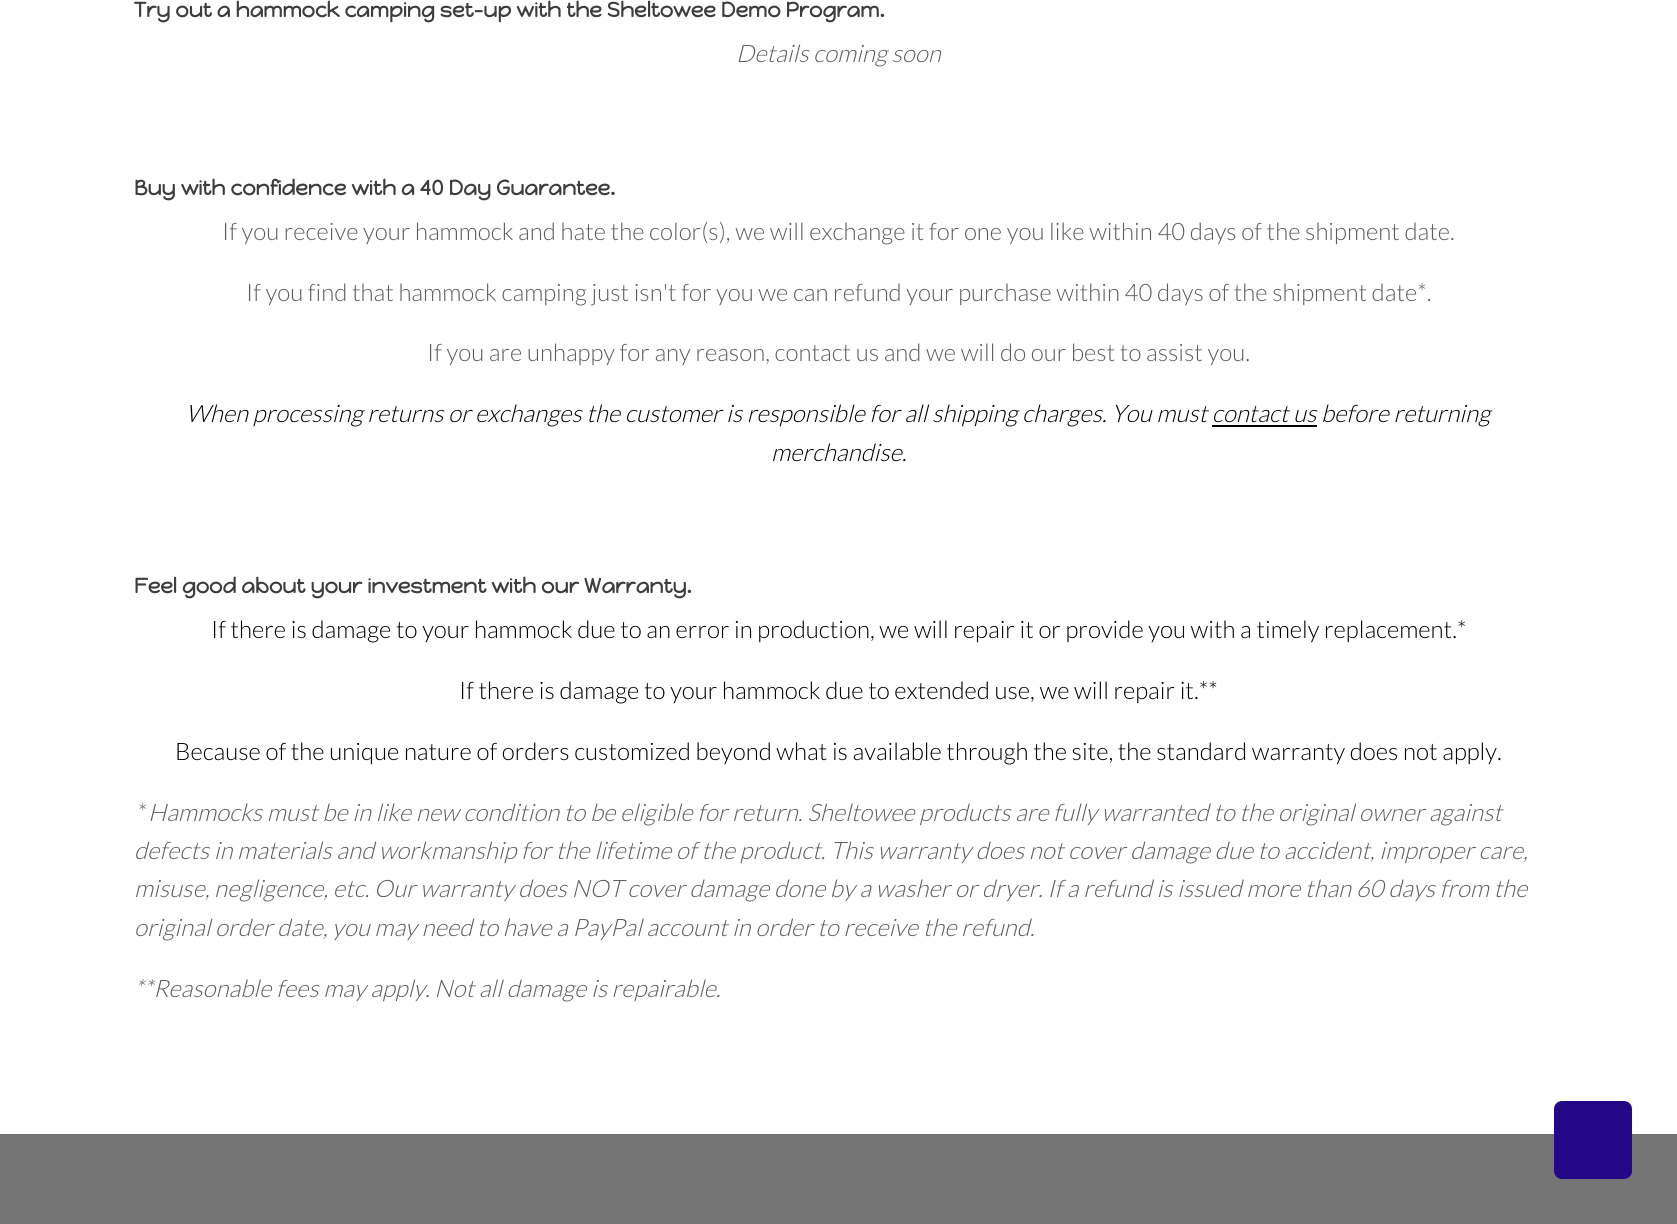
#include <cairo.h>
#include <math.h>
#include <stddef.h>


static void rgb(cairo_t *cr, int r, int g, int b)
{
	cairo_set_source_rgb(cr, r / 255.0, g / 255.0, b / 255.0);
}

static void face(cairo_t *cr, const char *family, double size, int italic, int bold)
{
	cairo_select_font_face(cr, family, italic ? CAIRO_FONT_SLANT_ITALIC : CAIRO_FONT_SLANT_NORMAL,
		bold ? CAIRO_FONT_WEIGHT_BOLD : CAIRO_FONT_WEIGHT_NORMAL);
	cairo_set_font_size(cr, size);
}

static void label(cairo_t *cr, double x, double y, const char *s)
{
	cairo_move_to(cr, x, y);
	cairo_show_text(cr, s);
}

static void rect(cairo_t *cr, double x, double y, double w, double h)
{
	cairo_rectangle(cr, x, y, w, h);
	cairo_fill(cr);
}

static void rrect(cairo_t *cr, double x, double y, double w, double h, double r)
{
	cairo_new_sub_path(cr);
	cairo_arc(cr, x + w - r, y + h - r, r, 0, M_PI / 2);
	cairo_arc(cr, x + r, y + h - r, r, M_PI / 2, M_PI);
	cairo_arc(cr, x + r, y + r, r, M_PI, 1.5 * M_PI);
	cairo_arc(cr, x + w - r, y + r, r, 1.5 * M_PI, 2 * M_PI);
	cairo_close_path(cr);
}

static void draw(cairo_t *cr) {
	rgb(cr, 255, 255, 255);
	cairo_paint(cr);
	face(cr, "Happy Monkey", 21, 0, 1);
	rgb(cr, 61, 61, 61);
	label(cr, 134, 17, "Try out a hammock camping set-up with the Sheltowee Demo Program.");
	face(cr, "Lato Light", 24, 1, 0);
	rgb(cr, 93, 93, 93);
	label(cr, 736, 62, "Details coming soon");
	face(cr, "Happy Monkey", 21, 0, 1);
	rgb(cr, 61, 61, 61);
	label(cr, 134, 195, "Buy with confidence with a 40 Day Guarantee.");
	face(cr, "Lato Light", 24, 0, 0);
	rgb(cr, 93, 93, 93);
	label(cr, 222, 240, "If you receive your hammock and hate the color(s), we will exchange it for one you like within 40 days of the shipment date.");
	label(cr, 246, 301, "If you find that hammock camping just isn't for you we can refund your purchase within 40 days of the shipment date*.");
	label(cr, 427, 361, "If you are unhappy for any reason, contact us and we will do our best to assist you.");
	face(cr, "Lato Light", 24, 1, 0);
	rgb(cr, 0, 0, 0);
	label(cr, 186, 422, "When processing returns or exchanges the customer is responsible for all shipping charges. You must contact us before returning");
	rect(cr, 1212, 425, 105, 2);
	label(cr, 771, 461, "merchandise.");
	face(cr, "Happy Monkey", 21, 0, 1);
	rgb(cr, 61, 61, 61);
	label(cr, 134, 593, "Feel good about your investment with our Warranty.");
	face(cr, "Lato Light", 24, 0, 0);
	rgb(cr, 0, 0, 0);
	label(cr, 211, 638, "If there is damage to your hammock due to an error in production, we will repair it or provide you with a timely replacement.*");
	label(cr, 459, 699, "If there is damage to your hammock due to extended use, we will repair it.**");
	label(cr, 175, 760, "Because of the unique nature of orders customized beyond what is available through the site, the standard warranty does not apply.");
	rgb(cr, 93, 93, 93);
	label(cr, 138, 821, "*");
	face(cr, "Lato Light", 24, 1, 0);
	label(cr, 148, 821, "Hammocks must be in like new condition to be eligible for return. Sheltowee products are fully warranted to the original owner against");
	label(cr, 134, 859, "defects in materials and workmanship for the lifetime of the product. This warranty does not cover damage due to accident, improper care,");
	label(cr, 134, 897, "misuse, negligence, etc. Our warranty does NOT cover damage done by a washer or dryer. If a refund is issued more than 60 days from the");
	label(cr, 134, 936, "original order date, you may need to have a PayPal account in order to receive the refund.");
	label(cr, 134, 997, "**Reasonable fees may apply. Not all damage is repairable.");
	rgb(cr, 116, 116, 116);
	rect(cr, 0, 1134, 1677, 90);
	rgb(cr, 34, 8, 134);
	rrect(cr, 1554, 1101, 78, 78, 8);
	cairo_fill(cr);
}

int main(void) {
	cairo_surface_t *surface = cairo_image_surface_create(CAIRO_FORMAT_RGB24, 1677, 1224);
	cairo_t *cr = cairo_create(surface);
	cairo_font_options_t *options = cairo_font_options_create();
	cairo_font_options_set_hint_metrics(options, CAIRO_HINT_METRICS_OFF);
	cairo_font_options_set_hint_style(options, CAIRO_HINT_STYLE_NONE);
	cairo_set_font_options(cr, options);
	cairo_set_miter_limit(cr, 4);
	draw(cr);
	cairo_surface_write_to_png(surface, "render.png");
	cairo_font_options_destroy(options);
	cairo_destroy(cr);
	cairo_surface_destroy(surface);
	return 0;
}
